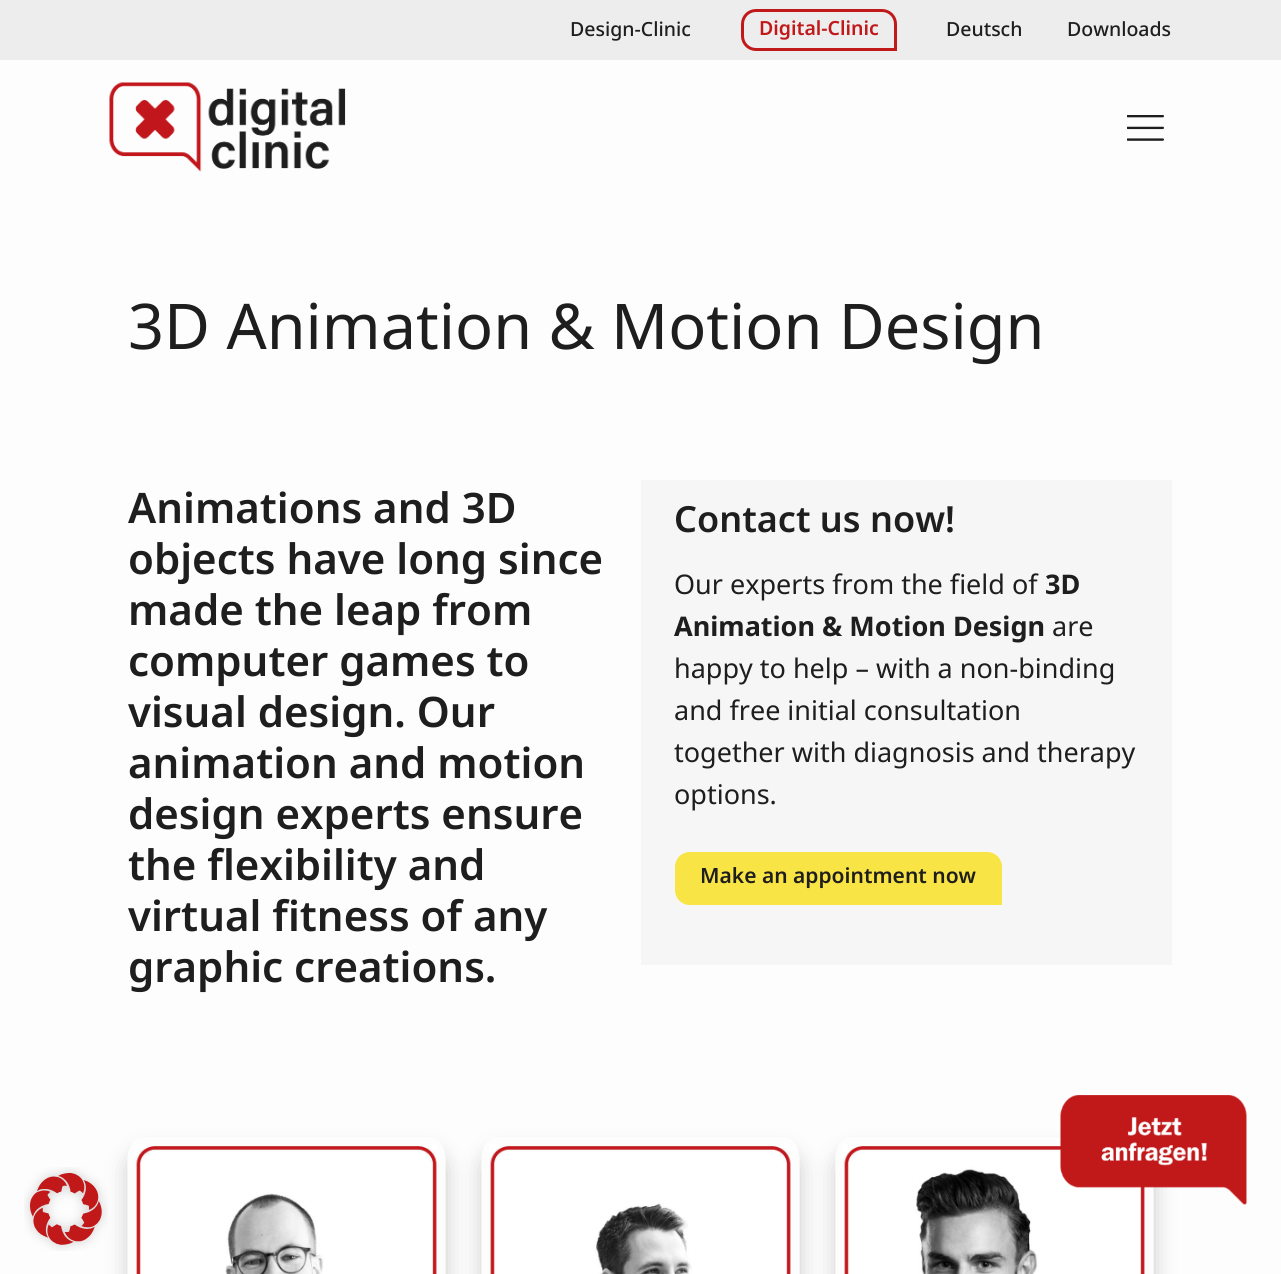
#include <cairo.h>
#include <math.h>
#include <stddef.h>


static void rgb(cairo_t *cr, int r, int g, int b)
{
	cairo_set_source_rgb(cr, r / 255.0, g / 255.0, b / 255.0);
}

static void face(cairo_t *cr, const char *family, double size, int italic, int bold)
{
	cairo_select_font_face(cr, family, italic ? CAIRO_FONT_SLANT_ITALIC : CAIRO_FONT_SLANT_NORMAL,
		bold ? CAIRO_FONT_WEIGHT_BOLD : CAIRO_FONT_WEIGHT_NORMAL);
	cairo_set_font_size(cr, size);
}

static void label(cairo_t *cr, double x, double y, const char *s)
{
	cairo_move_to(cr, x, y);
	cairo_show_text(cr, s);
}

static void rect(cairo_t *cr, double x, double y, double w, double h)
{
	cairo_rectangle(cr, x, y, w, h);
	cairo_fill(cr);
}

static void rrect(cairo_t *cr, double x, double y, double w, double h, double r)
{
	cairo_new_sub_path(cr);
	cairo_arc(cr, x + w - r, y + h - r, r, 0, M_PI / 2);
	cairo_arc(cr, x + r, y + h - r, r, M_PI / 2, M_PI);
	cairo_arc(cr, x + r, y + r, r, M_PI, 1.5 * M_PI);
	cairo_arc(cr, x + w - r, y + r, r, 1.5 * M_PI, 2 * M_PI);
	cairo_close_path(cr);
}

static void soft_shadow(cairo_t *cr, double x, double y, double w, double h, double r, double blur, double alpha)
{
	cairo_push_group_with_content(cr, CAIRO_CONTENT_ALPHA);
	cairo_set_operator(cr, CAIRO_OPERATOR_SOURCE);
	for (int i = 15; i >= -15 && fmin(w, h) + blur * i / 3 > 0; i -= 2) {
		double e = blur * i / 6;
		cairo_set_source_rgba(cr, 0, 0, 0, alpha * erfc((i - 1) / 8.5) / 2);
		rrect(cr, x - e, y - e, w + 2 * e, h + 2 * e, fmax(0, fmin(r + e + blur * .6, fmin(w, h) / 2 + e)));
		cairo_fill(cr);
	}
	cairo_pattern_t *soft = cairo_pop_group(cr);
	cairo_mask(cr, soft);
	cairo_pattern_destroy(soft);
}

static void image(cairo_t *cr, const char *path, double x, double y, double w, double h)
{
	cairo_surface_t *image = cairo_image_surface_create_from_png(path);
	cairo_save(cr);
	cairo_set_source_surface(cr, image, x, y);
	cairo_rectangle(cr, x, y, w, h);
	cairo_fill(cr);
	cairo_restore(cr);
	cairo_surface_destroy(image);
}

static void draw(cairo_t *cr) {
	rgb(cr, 253, 253, 253);
	cairo_paint(cr);
	rgb(cr, 237, 237, 237);
	rect(cr, 0, 0, 1281, 60);
	face(cr, "Noto Sans Medium", 19.5, 0, 0);
	rgb(cr, 30, 30, 30);
	label(cr, 570, 36, "Design-Clinic");
	cairo_new_path(cr);
	cairo_move_to(cr, 756, 10.5);
	cairo_line_to(cr, 882, 10.5);
	cairo_curve_to(cr, 889.5, 10.5, 895.5, 16.5, 895.5, 24);
	cairo_line_to(cr, 895.5, 49.5);
	cairo_line_to(cr, 756, 49.5);
	cairo_curve_to(cr, 748.5, 49.5, 742.5, 43.5, 742.5, 36);
	cairo_line_to(cr, 742.5, 24);
	cairo_curve_to(cr, 742.5, 16.5, 748.5, 10.5, 756, 10.5);
	cairo_close_path(cr);
	rgb(cr, 193, 24, 26);
	cairo_set_line_width(cr, 3);
	cairo_stroke(cr);
	face(cr, "Noto Sans SemiBold", 19.5, 0, 0);
	label(cr, 759, 35, "Digital-Clinic");
	face(cr, "Noto Sans Medium", 19.5, 0, 0);
	rgb(cr, 30, 30, 30);
	label(cr, 946, 36, "Deutsch");
	label(cr, 1067, 36, "Downloads");
	image(cr, "image0.png", 109, 82, 237, 90);
	image(cr, "image1.png", 1127, 115, 37, 26);
	face(cr, "Noto Sans", 63, 0, 0);
	label(cr, 128, 349, "3D Animation & Motion Design");
	face(cr, "Noto Sans SemiBold", 42, 0, 0);
	label(cr, 128, 523, "Animations and 3D");
	label(cr, 128, 574, "objects have long since");
	label(cr, 128, 625, "made the leap from");
	label(cr, 128, 676, "computer games to");
	label(cr, 128, 727, "visual design. Our");
	label(cr, 128, 778, "animation and motion");
	label(cr, 128, 829, "design experts ensure");
	label(cr, 128, 880, "the flexibility and");
	label(cr, 128, 931, "virtual fitness of any");
	label(cr, 128, 982, "graphic creations.");
	rgb(cr, 246, 246, 246);
	rect(cr, 641, 480, 531, 485);
	face(cr, "Noto Sans SemiBold", 36, 0, 0);
	rgb(cr, 30, 30, 30);
	label(cr, 674, 532, "Contact us now!");
	face(cr, "Noto Sans", 27, 0, 0);
	label(cr, 674, 594, "Our experts from the field of");
	face(cr, "Noto Sans", 27, 0, 1);
	label(cr, 1045, 594, "3D");
	label(cr, 674, 636, "Animation & Motion Design");
	face(cr, "Noto Sans", 27, 0, 0);
	label(cr, 1052, 636, "are");
	label(cr, 674, 678, "happy to help – with a non-binding");
	label(cr, 674, 720, "and free initial consultation");
	label(cr, 674, 762, "together with diagnosis and therapy");
	label(cr, 674, 804, "options.");
	rgb(cr, 249, 228, 69);
	cairo_new_path(cr);
	cairo_move_to(cr, 690, 852);
	cairo_line_to(cr, 987, 852);
	cairo_curve_to(cr, 995.5, 852, 1002, 858.5, 1002, 867);
	cairo_line_to(cr, 1002, 905);
	cairo_line_to(cr, 690, 905);
	cairo_curve_to(cr, 681.5, 905, 675, 898.5, 675, 890);
	cairo_line_to(cr, 675, 867);
	cairo_curve_to(cr, 675, 858.5, 681.5, 852, 690, 852);
	cairo_close_path(cr);
	cairo_fill(cr);
	face(cr, "Noto Sans SemiBold", 21, 0, 0);
	rgb(cr, 30, 30, 30);
	label(cr, 700, 883, "Make an appointment now");
	cairo_save(cr);
	cairo_set_fill_rule(cr, CAIRO_FILL_RULE_EVEN_ODD);
	cairo_new_path(cr);
	cairo_move_to(cr, 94, 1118);
	cairo_line_to(cr, 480, 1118);
	cairo_line_to(cr, 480, 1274);
	cairo_line_to(cr, 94, 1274);
	cairo_close_path(cr);
	cairo_move_to(cr, 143.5, 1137);
	cairo_line_to(cr, 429.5, 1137);
	cairo_curve_to(cr, 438.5, 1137, 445.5, 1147, 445.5, 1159.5);
	cairo_line_to(cr, 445.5, 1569);
	cairo_curve_to(cr, 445.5, 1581.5, 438.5, 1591.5, 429.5, 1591.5);
	cairo_line_to(cr, 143.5, 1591.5);
	cairo_curve_to(cr, 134.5, 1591.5, 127.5, 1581.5, 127.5, 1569);
	cairo_line_to(cr, 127.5, 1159.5);
	cairo_curve_to(cr, 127.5, 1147, 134.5, 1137, 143.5, 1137);
	cairo_close_path(cr);
	cairo_clip(cr);
	rgb(cr, 0, 0, 0);
	soft_shadow(cr, 128, 1152, 318, 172, 17, 11, 0.2);
	cairo_restore(cr);
	image(cr, "image2.png", 135, 1144, 302, 130);
	cairo_save(cr);
	cairo_set_fill_rule(cr, CAIRO_FILL_RULE_EVEN_ODD);
	cairo_new_path(cr);
	cairo_move_to(cr, 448, 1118);
	cairo_line_to(cr, 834, 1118);
	cairo_line_to(cr, 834, 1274);
	cairo_line_to(cr, 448, 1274);
	cairo_close_path(cr);
	cairo_move_to(cr, 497.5, 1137);
	cairo_line_to(cr, 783.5, 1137);
	cairo_curve_to(cr, 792.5, 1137, 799.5, 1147, 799.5, 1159.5);
	cairo_line_to(cr, 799.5, 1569);
	cairo_curve_to(cr, 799.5, 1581.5, 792.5, 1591.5, 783.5, 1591.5);
	cairo_line_to(cr, 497.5, 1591.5);
	cairo_curve_to(cr, 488.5, 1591.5, 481.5, 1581.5, 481.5, 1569);
	cairo_line_to(cr, 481.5, 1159.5);
	cairo_curve_to(cr, 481.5, 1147, 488.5, 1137, 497.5, 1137);
	cairo_close_path(cr);
	cairo_clip(cr);
	rgb(cr, 0, 0, 0);
	soft_shadow(cr, 482, 1152, 318, 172, 17, 11, 0.2);
	cairo_restore(cr);
	image(cr, "image3.png", 489, 1144, 302, 130);
	cairo_save(cr);
	cairo_set_fill_rule(cr, CAIRO_FILL_RULE_EVEN_ODD);
	cairo_new_path(cr);
	cairo_move_to(cr, 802, 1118);
	cairo_line_to(cr, 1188, 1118);
	cairo_line_to(cr, 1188, 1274);
	cairo_line_to(cr, 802, 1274);
	cairo_close_path(cr);
	cairo_move_to(cr, 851.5, 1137);
	cairo_line_to(cr, 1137.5, 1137);
	cairo_curve_to(cr, 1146.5, 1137, 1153.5, 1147, 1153.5, 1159.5);
	cairo_line_to(cr, 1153.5, 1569);
	cairo_curve_to(cr, 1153.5, 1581.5, 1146.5, 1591.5, 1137.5, 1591.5);
	cairo_line_to(cr, 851.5, 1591.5);
	cairo_curve_to(cr, 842.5, 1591.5, 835.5, 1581.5, 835.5, 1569);
	cairo_line_to(cr, 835.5, 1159.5);
	cairo_curve_to(cr, 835.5, 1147, 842.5, 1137, 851.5, 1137);
	cairo_close_path(cr);
	cairo_clip(cr);
	rgb(cr, 0, 0, 0);
	soft_shadow(cr, 836, 1152, 318, 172, 17, 11, 0.2);
	cairo_restore(cr);
	image(cr, "image4.png", 843, 1144, 302, 130);
	image(cr, "image5.png", 24, 1167, 84, 84);
	image(cr, "image6.png", 1060, 1095, 187, 110);
}

int main(void) {
	cairo_surface_t *surface = cairo_image_surface_create(CAIRO_FORMAT_RGB24, 1281, 1274);
	cairo_t *cr = cairo_create(surface);
	cairo_font_options_t *options = cairo_font_options_create();
	cairo_font_options_set_hint_metrics(options, CAIRO_HINT_METRICS_OFF);
	cairo_font_options_set_hint_style(options, CAIRO_HINT_STYLE_NONE);
	cairo_set_font_options(cr, options);
	cairo_set_miter_limit(cr, 4);
	draw(cr);
	cairo_surface_write_to_png(surface, "render.png");
	cairo_font_options_destroy(options);
	cairo_destroy(cr);
	cairo_surface_destroy(surface);
	return 0;
}
